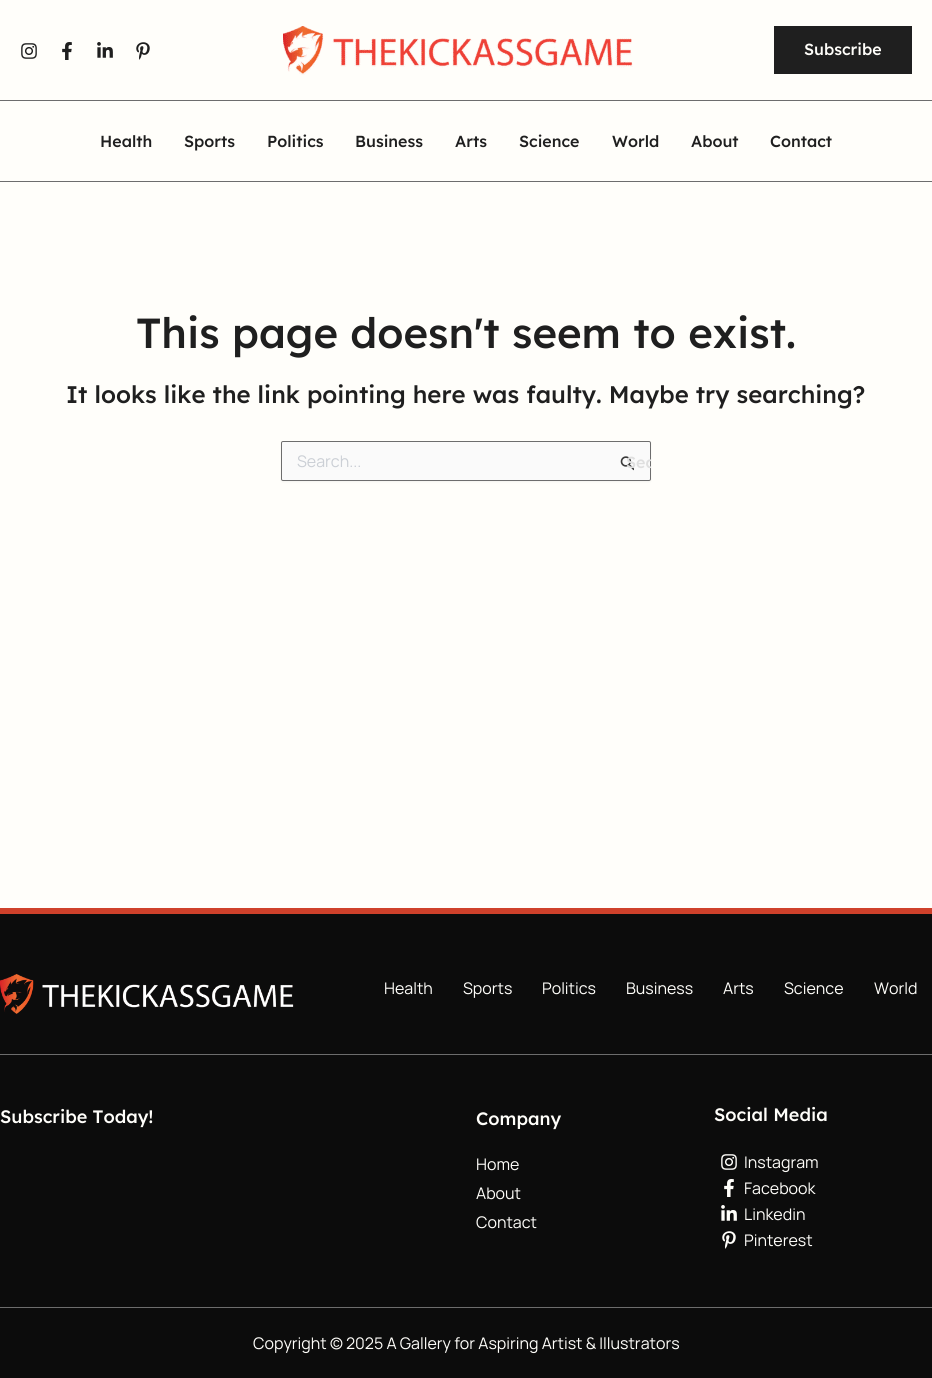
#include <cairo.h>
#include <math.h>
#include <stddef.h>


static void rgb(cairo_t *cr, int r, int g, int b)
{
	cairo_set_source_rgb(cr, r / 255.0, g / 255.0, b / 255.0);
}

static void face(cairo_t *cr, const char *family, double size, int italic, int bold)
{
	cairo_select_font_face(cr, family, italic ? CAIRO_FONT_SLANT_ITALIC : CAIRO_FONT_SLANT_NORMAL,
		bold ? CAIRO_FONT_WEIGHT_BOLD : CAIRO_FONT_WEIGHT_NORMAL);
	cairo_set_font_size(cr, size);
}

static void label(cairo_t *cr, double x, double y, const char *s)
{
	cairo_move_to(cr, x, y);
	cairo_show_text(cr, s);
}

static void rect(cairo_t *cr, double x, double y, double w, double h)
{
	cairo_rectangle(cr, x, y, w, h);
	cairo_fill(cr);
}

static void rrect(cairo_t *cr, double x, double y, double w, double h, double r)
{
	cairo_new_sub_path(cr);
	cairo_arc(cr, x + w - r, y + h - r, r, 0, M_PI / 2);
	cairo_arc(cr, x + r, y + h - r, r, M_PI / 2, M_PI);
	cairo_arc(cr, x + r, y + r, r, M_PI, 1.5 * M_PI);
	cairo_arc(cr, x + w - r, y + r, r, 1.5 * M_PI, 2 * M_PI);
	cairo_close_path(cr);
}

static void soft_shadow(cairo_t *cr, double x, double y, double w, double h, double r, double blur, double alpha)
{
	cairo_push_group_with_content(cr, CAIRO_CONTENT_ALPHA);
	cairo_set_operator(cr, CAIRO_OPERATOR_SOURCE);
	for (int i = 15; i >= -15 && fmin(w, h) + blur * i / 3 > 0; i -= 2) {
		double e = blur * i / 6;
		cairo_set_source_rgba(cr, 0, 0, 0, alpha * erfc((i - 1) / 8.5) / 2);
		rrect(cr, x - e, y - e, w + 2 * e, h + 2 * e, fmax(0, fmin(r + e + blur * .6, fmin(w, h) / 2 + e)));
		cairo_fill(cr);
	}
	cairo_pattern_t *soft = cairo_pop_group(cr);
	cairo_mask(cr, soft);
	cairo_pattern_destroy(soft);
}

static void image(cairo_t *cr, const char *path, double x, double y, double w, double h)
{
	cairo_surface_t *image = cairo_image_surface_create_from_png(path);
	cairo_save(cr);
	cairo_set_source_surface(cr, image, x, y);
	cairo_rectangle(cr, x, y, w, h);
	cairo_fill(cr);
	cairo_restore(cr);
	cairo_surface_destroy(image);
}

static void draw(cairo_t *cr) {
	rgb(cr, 255, 254, 250);
	cairo_paint(cr);
	rgb(cr, 109, 109, 109);
	rect(cr, 0, 100, 932, 1);
	image(cr, "image0.png", 21, 43, 16, 16);
	image(cr, "image1.png", 62, 42, 10, 18);
	image(cr, "image2.png", 97, 42, 16, 16);
	image(cr, "image3.png", 136, 42, 14, 18);
	image(cr, "image4.png", 283, 26, 350, 49);
	rgb(cr, 31, 31, 31);
	rect(cr, 774, 26, 138, 48);
	face(cr, "Lexend Medium", 16, 0, 0);
	rgb(cr, 255, 254, 250);
	label(cr, 804, 55, "Subscribe");
	rgb(cr, 109, 109, 109);
	rect(cr, 0, 181, 932, 1);
	rgb(cr, 31, 31, 31);
	label(cr, 100, 147, "Health");
	label(cr, 184, 147, "Sports");
	label(cr, 267, 147, "Politics");
	label(cr, 355, 147, "Business");
	label(cr, 455, 147, "Arts");
	label(cr, 519, 147, "Science");
	label(cr, 612, 147, "World");
	label(cr, 691, 147, "About");
	label(cr, 770, 147, "Contact");
	face(cr, "Lexend Medium", 42, 0, 0);
	label(cr, 136, 348, "This page doesn't seem to exist.");
	face(cr, "Lexend Medium", 24, 0, 0);
	label(cr, 66, 403, "It looks like the link pointing here was faulty. Maybe try searching?");
	rgb(cr, 0, 0, 0);
	soft_shadow(cr, 281, 442, 370, 40, 2, 1, 0.05);
	rgb(cr, 250, 250, 250);
	rrect(cr, 281.5, 441.5, 369, 39, 1.5);
	cairo_fill_preserve(cr);
	rgb(cr, 109, 109, 109);
	cairo_set_line_width(cr, 1);
	cairo_stroke(cr);
	face(cr, "Manrope", 16, 0, 0);
	rgb(cr, 203, 207, 213);
	label(cr, 297, 467, "Search...");
	image(cr, "image5.png", 620, 456, 14, 15);
	cairo_save(cr);
	rrect(cr, 606, 441, 45, 44, 2);
	cairo_clip(cr);
	face(cr, "Lexend Medium", 16, 0, 0);
	rgb(cr, 223, 223, 223);
	label(cr, 626, 468, "Sea");
	cairo_restore(cr);
	rgb(cr, 12, 12, 12);
	rect(cr, 0, 914, 932, 464);
	rgb(cr, 207, 65, 43);
	rect(cr, 0, 908, 932, 6);
	image(cr, "image6.png", 0, 974, 294, 40);
	rgb(cr, 255, 254, 250);
	label(cr, 384, 994, "Health");
	label(cr, 463, 994, "Sports");
	label(cr, 542, 994, "Politics");
	label(cr, 626, 994, "Business");
	label(cr, 723, 994, "Arts");
	label(cr, 784, 994, "Science");
	label(cr, 874, 994, "World");
	rgb(cr, 109, 109, 109);
	rect(cr, 0, 1054, 932, 1);
	face(cr, "Lexend Medium", 18, 0, 0);
	rgb(cr, 255, 254, 250);
	label(cr, 0, 1123, "Subscribe Today!");
	label(cr, 476, 1125, "Company");
	face(cr, "Manrope", 16, 0, 0);
	label(cr, 476, 1170, "Home");
	label(cr, 476, 1199, "About");
	label(cr, 476, 1228, "Contact");
	face(cr, "Lexend Medium", 18, 0, 0);
	label(cr, 714, 1121, "Social Media");
	image(cr, "image7.png", 721, 1154, 16, 16);
	face(cr, "Manrope", 16, 0, 0);
	label(cr, 744, 1168, "Instagram");
	image(cr, "image8.png", 724, 1179, 10, 18);
	label(cr, 744, 1194, "Facebook");
	image(cr, "image9.png", 721, 1205, 16, 16);
	label(cr, 744, 1220, "Linkedin");
	image(cr, "image10.png", 722, 1231, 14, 18);
	label(cr, 744, 1246, "Pinterest");
	rgb(cr, 109, 109, 109);
	rect(cr, 0, 1307, 932, 1);
	rgb(cr, 255, 254, 250);
	label(cr, 253, 1349, "Copyright © 2025 A Gallery for Aspiring Artist & Illustrators");
}

int main(void) {
	cairo_surface_t *surface = cairo_image_surface_create(CAIRO_FORMAT_RGB24, 932, 1378);
	cairo_t *cr = cairo_create(surface);
	cairo_font_options_t *options = cairo_font_options_create();
	cairo_font_options_set_hint_metrics(options, CAIRO_HINT_METRICS_OFF);
	cairo_font_options_set_hint_style(options, CAIRO_HINT_STYLE_NONE);
	cairo_set_font_options(cr, options);
	cairo_set_miter_limit(cr, 4);
	draw(cr);
	cairo_surface_write_to_png(surface, "render.png");
	cairo_font_options_destroy(options);
	cairo_destroy(cr);
	cairo_surface_destroy(surface);
	return 0;
}
